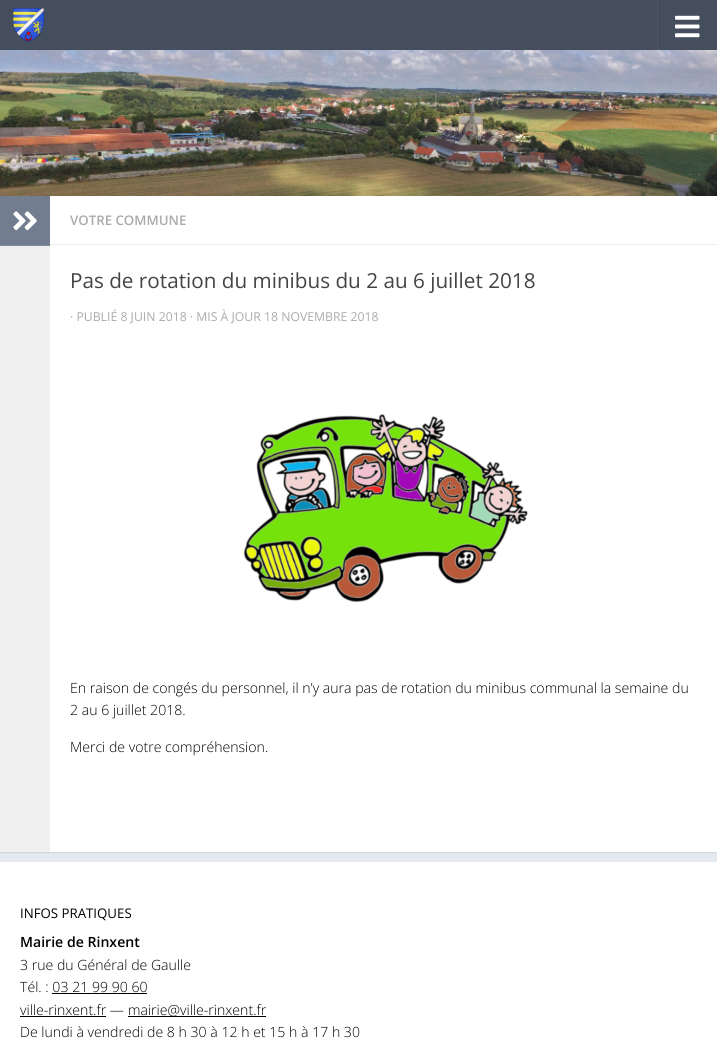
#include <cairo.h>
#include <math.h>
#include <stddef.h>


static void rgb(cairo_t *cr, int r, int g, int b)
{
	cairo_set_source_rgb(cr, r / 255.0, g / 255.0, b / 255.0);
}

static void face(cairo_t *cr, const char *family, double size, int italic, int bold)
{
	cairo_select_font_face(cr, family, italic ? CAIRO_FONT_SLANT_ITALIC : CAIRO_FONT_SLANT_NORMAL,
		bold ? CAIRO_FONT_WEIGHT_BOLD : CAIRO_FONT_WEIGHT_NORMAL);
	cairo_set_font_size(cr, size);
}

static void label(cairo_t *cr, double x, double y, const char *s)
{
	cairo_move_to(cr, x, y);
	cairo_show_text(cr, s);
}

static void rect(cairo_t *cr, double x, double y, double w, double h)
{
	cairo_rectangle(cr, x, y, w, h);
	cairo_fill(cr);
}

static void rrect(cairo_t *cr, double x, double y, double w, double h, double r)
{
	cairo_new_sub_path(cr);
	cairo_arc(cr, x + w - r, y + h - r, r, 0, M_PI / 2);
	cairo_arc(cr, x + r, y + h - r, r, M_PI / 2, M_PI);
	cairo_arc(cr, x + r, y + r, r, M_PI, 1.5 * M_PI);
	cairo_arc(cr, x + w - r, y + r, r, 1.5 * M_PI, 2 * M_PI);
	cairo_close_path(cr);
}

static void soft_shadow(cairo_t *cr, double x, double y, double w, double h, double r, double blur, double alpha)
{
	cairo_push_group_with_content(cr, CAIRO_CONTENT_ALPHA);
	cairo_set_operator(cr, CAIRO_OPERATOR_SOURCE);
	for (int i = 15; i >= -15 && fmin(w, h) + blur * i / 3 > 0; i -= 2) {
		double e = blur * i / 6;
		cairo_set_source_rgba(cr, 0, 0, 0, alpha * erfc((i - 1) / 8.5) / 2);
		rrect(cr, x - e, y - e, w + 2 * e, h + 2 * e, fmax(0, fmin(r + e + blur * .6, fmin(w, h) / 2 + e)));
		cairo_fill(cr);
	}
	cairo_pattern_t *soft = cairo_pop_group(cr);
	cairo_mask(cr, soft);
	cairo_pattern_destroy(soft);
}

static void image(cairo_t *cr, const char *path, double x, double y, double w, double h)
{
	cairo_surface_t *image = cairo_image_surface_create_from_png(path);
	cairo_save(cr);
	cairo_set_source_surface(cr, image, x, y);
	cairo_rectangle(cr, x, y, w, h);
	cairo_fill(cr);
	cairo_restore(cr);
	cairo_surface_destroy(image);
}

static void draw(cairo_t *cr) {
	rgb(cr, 229, 234, 241);
	cairo_paint(cr);
	rgb(cr, 69, 78, 92);
	rect(cr, 0, 0, 717, 50);
	image(cr, "image0.png", 13, 8, 31, 35);
	rgb(cr, 80, 89, 102);
	rect(cr, 657, 0, 1, 50);
	image(cr, "image1.png", 675, 15, 25, 23);
	rgb(cr, 0, 0, 0);
	soft_shadow(cr, 0, 197, 717, 656, 0, 0.5, 0.1);
	image(cr, "image2.png", 0, 50, 717, 146);
	rgb(cr, 255, 255, 255);
	rect(cr, 50, 196, 667, 656);
	rgb(cr, 240, 240, 240);
	rect(cr, 0, 246, 50, 606);
	rgb(cr, 114, 126, 143);
	rect(cr, 0, 196, 50, 49);
	rgb(cr, 128, 139, 154);
	rect(cr, 0, 245, 50, 1);
	image(cr, "image3.png", 13, 211, 24, 20);
	rgb(cr, 238, 238, 238);
	rect(cr, 50, 244, 667, 1);
	face(cr, "Open Sans SemiBold", 13.25, 0, 0);
	rgb(cr, 170, 170, 170);
	label(cr, 70, 225, "VOTRE COMMUNE");
	face(cr, "Open Sans", 20.7, 0, 0);
	rgb(cr, 68, 68, 68);
	label(cr, 70, 288, "Pas de rotation du minibus du 2 au 6 juillet 2018");
	face(cr, "Open Sans", 12.25, 0, 0);
	rgb(cr, 170, 170, 170);
	label(cr, 70, 321, "· PUBLIÉ 8 JUIN 2018 · MIS À JOUR 18 NOVEMBRE 2018");
	image(cr, "image4.png", 243, 414, 285, 189);
	face(cr, "Open Sans Light", 14.1, 0, 0);
	rgb(cr, 0, 0, 0);
	label(cr, 70, 693, "En raison de congés du personnel, il n’y aura pas de rotation du minibus communal la semaine du");
	label(cr, 70, 715, "2 au 6 juillet 2018.");
	label(cr, 70, 752, "Merci de votre compréhension.");
	rgb(cr, 255, 255, 255);
	rect(cr, 0, 862, 717, 176);
	face(cr, "Open Sans", 13.25, 0, 0);
	rgb(cr, 0, 0, 0);
	label(cr, 20, 918, "INFOS PRATIQUES");
	face(cr, "Open Sans SemiBold", 14.1, 0, 0);
	label(cr, 20, 947, "Mairie de Rinxent");
	face(cr, "Open Sans Light", 14.1, 0, 0);
	label(cr, 20, 970, "3 rue du Général de Gaulle");
	label(cr, 20, 992, "Tél. : 03 21 99 90 60");
	rect(cr, 52, 993, 95, 1);
	label(cr, 20, 1015, "ville-rinxent.fr —");
	rect(cr, 20, 1016, 86, 1);
	rect(cr, 128, 1016, 138, 1);
	label(cr, 128, 1015, "mairie@ville-rinxent.fr");
	label(cr, 20, 1037, "De lundi à vendredi de 8 h 30 à 12 h et 15 h à 17 h 30");
}

int main(void) {
	cairo_surface_t *surface = cairo_image_surface_create(CAIRO_FORMAT_RGB24, 717, 1038);
	cairo_t *cr = cairo_create(surface);
	cairo_font_options_t *options = cairo_font_options_create();
	cairo_font_options_set_hint_metrics(options, CAIRO_HINT_METRICS_OFF);
	cairo_font_options_set_hint_style(options, CAIRO_HINT_STYLE_NONE);
	cairo_set_font_options(cr, options);
	cairo_set_miter_limit(cr, 4);
	draw(cr);
	cairo_surface_write_to_png(surface, "render.png");
	cairo_font_options_destroy(options);
	cairo_destroy(cr);
	cairo_surface_destroy(surface);
	return 0;
}
